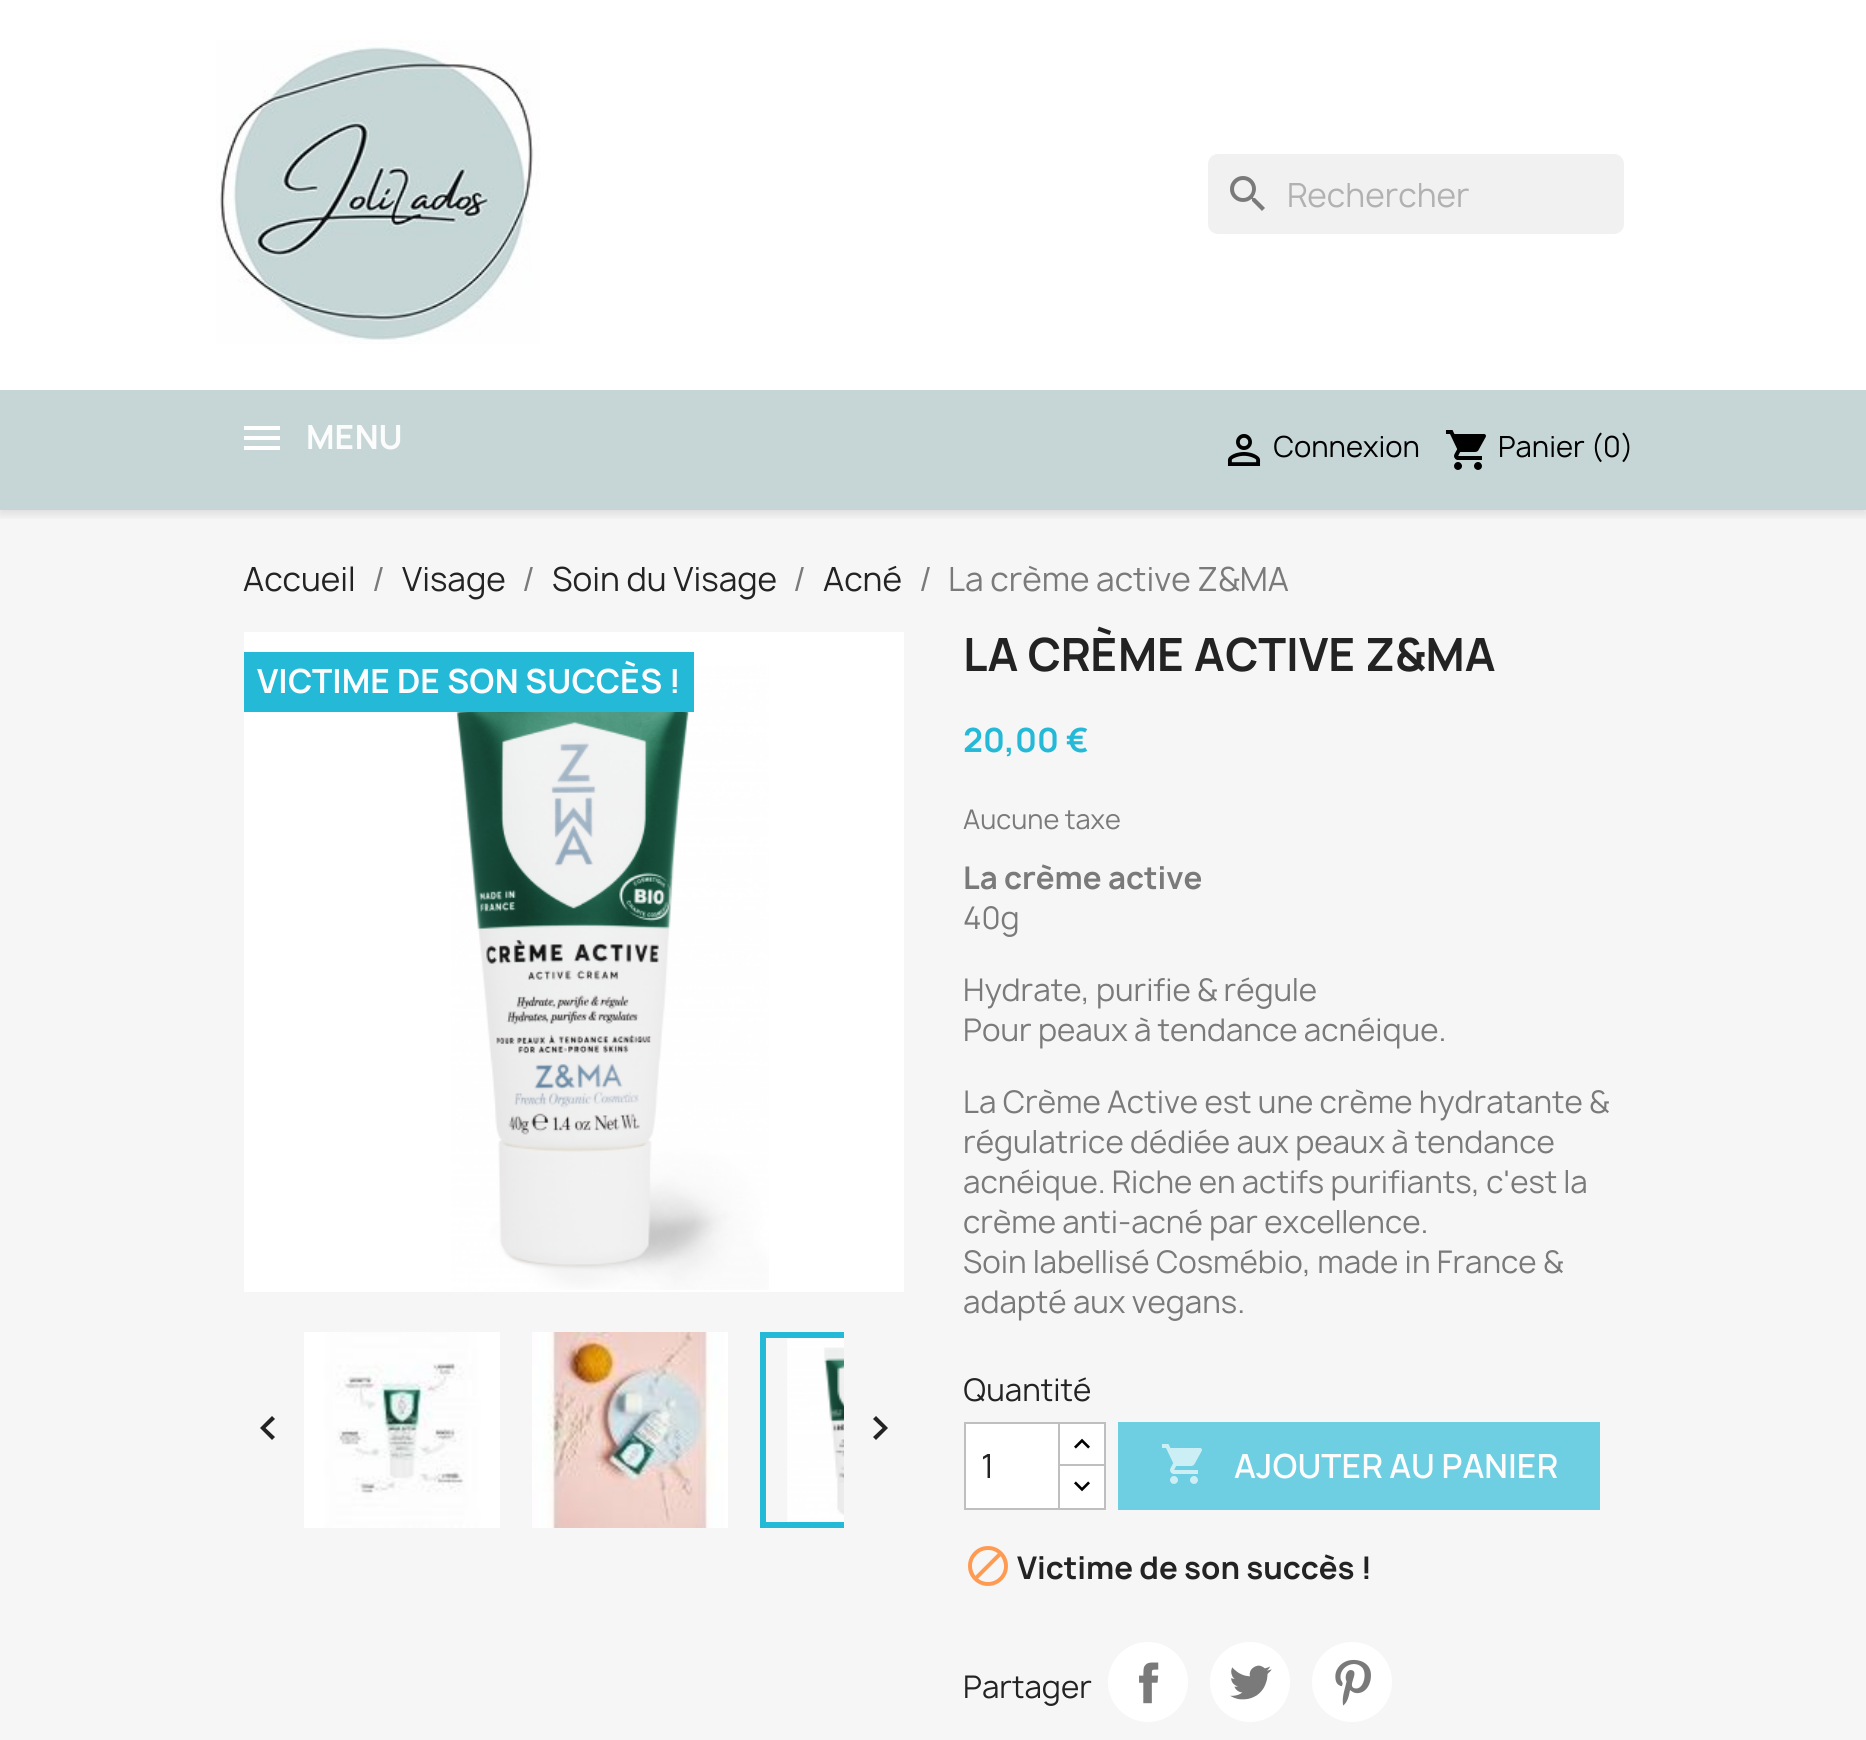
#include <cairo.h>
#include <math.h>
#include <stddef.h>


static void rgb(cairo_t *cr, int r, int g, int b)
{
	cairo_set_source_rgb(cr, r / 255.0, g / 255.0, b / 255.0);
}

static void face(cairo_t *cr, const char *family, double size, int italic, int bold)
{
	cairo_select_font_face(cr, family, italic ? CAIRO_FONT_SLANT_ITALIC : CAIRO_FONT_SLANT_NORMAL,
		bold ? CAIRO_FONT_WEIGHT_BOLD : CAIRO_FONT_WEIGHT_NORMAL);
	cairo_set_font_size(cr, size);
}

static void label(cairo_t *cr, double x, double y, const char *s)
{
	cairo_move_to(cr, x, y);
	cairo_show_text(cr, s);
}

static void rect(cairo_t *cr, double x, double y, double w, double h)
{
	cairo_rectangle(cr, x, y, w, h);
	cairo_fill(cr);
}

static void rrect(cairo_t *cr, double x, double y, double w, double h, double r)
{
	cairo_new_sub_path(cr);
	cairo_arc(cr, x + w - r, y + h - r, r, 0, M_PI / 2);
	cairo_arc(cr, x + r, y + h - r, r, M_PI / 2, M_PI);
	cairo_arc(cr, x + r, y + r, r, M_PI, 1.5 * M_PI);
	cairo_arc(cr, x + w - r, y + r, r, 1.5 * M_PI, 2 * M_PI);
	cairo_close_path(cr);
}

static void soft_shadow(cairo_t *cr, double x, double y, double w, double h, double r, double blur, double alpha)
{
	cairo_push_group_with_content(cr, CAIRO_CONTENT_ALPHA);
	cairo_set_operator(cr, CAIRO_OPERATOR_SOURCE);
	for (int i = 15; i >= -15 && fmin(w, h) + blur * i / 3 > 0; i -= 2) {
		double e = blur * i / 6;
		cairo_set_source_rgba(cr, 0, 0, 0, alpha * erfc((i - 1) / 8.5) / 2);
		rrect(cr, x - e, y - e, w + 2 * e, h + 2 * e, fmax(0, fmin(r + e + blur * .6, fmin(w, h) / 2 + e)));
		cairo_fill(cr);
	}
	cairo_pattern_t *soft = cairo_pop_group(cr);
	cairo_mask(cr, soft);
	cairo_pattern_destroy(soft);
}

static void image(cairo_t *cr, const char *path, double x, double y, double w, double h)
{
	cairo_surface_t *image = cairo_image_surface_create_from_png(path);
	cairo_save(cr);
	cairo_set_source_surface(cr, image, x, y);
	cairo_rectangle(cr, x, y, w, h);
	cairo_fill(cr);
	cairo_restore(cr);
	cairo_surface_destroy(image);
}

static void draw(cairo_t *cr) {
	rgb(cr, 255, 255, 255);
	cairo_paint(cr);
	rgb(cr, 246, 246, 246);
	rect(cr, 0, 510, 1866, 1230);
	cairo_save(cr);
	cairo_rectangle(cr, 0, 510, 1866, 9);
	cairo_clip(cr);
	rgb(cr, 0, 0, 0);
	soft_shadow(cr, 0, 4, 1866, 510, 0, 5, 0.11);
	cairo_restore(cr);
	image(cr, "image0.png", 216, 40, 324, 304);
	rgb(cr, 241, 241, 241);
	rrect(cr, 1208, 154, 416, 80, 10);
	cairo_fill(cr);
	image(cr, "image1.png", 1230, 176, 35, 35);
	face(cr, "Manrope", 32, 0, 0);
	rgb(cr, 177, 177, 177);
	label(cr, 1287, 207, "Rechercher");
	rgb(cr, 198, 214, 214);
	rect(cr, 0, 390, 1866, 120);
	rgb(cr, 255, 255, 255);
	rect(cr, 244, 426, 36, 4);
	rect(cr, 244, 436, 36, 4);
	rect(cr, 244, 446, 36, 4);
	face(cr, "Manrope", 32, 0, 1);
	rgb(cr, 252, 252, 252);
	label(cr, 306, 449, "MENU");
	image(cr, "image2.png", 1227, 434, 34, 32);
	face(cr, "Manrope", 28, 0, 0);
	rgb(cr, 0, 0, 0);
	label(cr, 1273, 457, "Connexion");
	image(cr, "image3.png", 1445, 430, 41, 40);
	label(cr, 1498, 457, "Panier (0)");
	face(cr, "Manrope", 32, 0, 0);
	rgb(cr, 35, 35, 35);
	label(cr, 243, 591, "Accueil");
	rgb(cr, 122, 122, 122);
	label(cr, 372, 591, "/");
	rgb(cr, 35, 35, 35);
	label(cr, 402, 591, "Visage");
	rgb(cr, 122, 122, 122);
	label(cr, 522, 591, "/");
	rgb(cr, 35, 35, 35);
	label(cr, 552, 591, "Soin du Visage");
	rgb(cr, 122, 122, 122);
	label(cr, 793, 591, "/");
	rgb(cr, 35, 35, 35);
	label(cr, 823, 591, "Acné");
	rgb(cr, 122, 122, 122);
	label(cr, 919, 591, "/");
	label(cr, 948, 591, "La crème active Z&MA");
	rgb(cr, 255, 255, 255);
	rect(cr, 244, 632, 660, 660);
	image(cr, "image4.png", 451, 665, 318, 625);
	image(cr, "image5.png", 304, 1332, 196, 196);
	image(cr, "image6.png", 532, 1332, 196, 196);
	cairo_save(cr);
	cairo_rectangle(cr, 304, 1332, 540, 248);
	cairo_clip(cr);
	cairo_rectangle(cr, 763, 1335, 190, 190);
	rgb(cr, 36, 185, 215);
	cairo_set_line_width(cr, 6);
	cairo_stroke(cr);
	cairo_restore(cr);
	image(cr, "image7.png", 787, 1338, 57, 184);
	rgb(cr, 36, 185, 215);
	rect(cr, 244, 652, 450, 60);
	face(cr, "Manrope", 32, 0, 1);
	rgb(cr, 252, 252, 252);
	label(cr, 257, 693, "VICTIME DE SON SUCCÈS !");
	rgb(cr, 35, 35, 35);
	cairo_new_path(cr);
	cairo_move_to(cr, 275, 1437);
	cairo_line_to(cr, 272, 1440);
	cairo_line_to(cr, 260, 1428);
	cairo_line_to(cr, 272, 1416);
	cairo_line_to(cr, 275, 1419);
	cairo_line_to(cr, 265.5, 1428);
	cairo_close_path(cr);
	cairo_fill(cr);
	cairo_new_path(cr);
	cairo_move_to(cr, 873, 1437);
	cairo_line_to(cr, 882.5, 1428);
	cairo_line_to(cr, 873, 1419);
	cairo_line_to(cr, 876, 1416);
	cairo_line_to(cr, 888, 1428);
	cairo_line_to(cr, 876, 1440);
	cairo_close_path(cr);
	cairo_fill(cr);
	face(cr, "Manrope", 44, 0, 1);
	label(cr, 963, 671, "LA CRÈME ACTIVE Z&MA");
	face(cr, "Manrope", 32, 0, 1);
	rgb(cr, 36, 185, 215);
	label(cr, 963, 752, "20,00 €");
	face(cr, "Manrope", 26, 0, 0);
	rgb(cr, 122, 122, 122);
	label(cr, 963, 829, "Aucune taxe");
	face(cr, "Manrope", 30, 0, 1);
	label(cr, 963, 889, "La crème active");
	face(cr, "Manrope", 30, 0, 0);
	label(cr, 963, 929, "40g");
	label(cr, 963, 1001, "Hydrate, purifie & régule");
	label(cr, 963, 1041, "Pour peaux à tendance acnéique.");
	label(cr, 963, 1113, "La Crème Active est une crème hydratante &");
	label(cr, 963, 1153, "régulatrice dédiée aux peaux à tendance");
	label(cr, 963, 1193, "acnéique. Riche en actifs purifiants, c'est la");
	label(cr, 963, 1233, "crème anti-acné par excellence.");
	label(cr, 963, 1273, "Soin labellisé Cosmébio, made in France &");
	label(cr, 963, 1313, "adapté aux vegans.");
	rgb(cr, 35, 35, 35);
	label(cr, 963, 1401, "Quantité");
	rgb(cr, 255, 255, 255);
	rect(cr, 1060, 1424, 44, 40);
	cairo_rectangle(cr, 1059, 1423, 46, 44);
	rgb(cr, 191, 191, 191);
	cairo_stroke(cr);
	rgb(cr, 255, 255, 255);
	cairo_rectangle(cr, 1059, 1465, 46, 44);
	cairo_fill_preserve(cr);
	rgb(cr, 191, 191, 191);
	cairo_stroke(cr);
	rgb(cr, 255, 255, 255);
	cairo_rectangle(cr, 965, 1423, 94, 86);
	cairo_fill_preserve(cr);
	rgb(cr, 191, 191, 191);
	cairo_stroke(cr);
	face(cr, "Manrope", 32, 0, 0);
	rgb(cr, 35, 35, 35);
	label(cr, 981, 1478, "1");
	image(cr, "image8.png", 1074, 1438, 16, 11);
	image(cr, "image9.png", 1074, 1481, 16, 11);
	rgb(cr, 110, 206, 226);
	rect(cr, 1118, 1422, 482, 88);
	image(cr, "image10.png", 1162, 1444, 40, 40);
	face(cr, "Manrope SemiBold", 32, 0, 0);
	rgb(cr, 252, 252, 252);
	label(cr, 1234, 1478, "AJOUTER AU PANIER");
	image(cr, "image11.png", 968, 1546, 40, 40);
	face(cr, "Manrope", 30, 0, 1);
	rgb(cr, 35, 35, 35);
	label(cr, 1017, 1579, "Victime de son succès !");
	face(cr, "Manrope", 30, 0, 0);
	label(cr, 963, 1698, "Partager");
	rgb(cr, 255, 255, 255);
	cairo_new_path(cr);
	cairo_arc(cr, 1148, 1682, 40, 0, 2 * M_PI);
	cairo_fill(cr);
	image(cr, "image12.png", 1139, 1662, 20, 42);
	cairo_arc(cr, 1250, 1682, 40, 0, 2 * M_PI);
	cairo_fill(cr);
	image(cr, "image13.png", 1230, 1665, 42, 35);
	cairo_arc(cr, 1352, 1682, 40, 0, 2 * M_PI);
	cairo_fill(cr);
	image(cr, "image14.png", 1335, 1659, 36, 47);
}

int main(void) {
	cairo_surface_t *surface = cairo_image_surface_create(CAIRO_FORMAT_RGB24, 1866, 1740);
	cairo_t *cr = cairo_create(surface);
	cairo_font_options_t *options = cairo_font_options_create();
	cairo_font_options_set_hint_metrics(options, CAIRO_HINT_METRICS_OFF);
	cairo_font_options_set_hint_style(options, CAIRO_HINT_STYLE_NONE);
	cairo_set_font_options(cr, options);
	cairo_set_miter_limit(cr, 4);
	draw(cr);
	cairo_surface_write_to_png(surface, "render.png");
	cairo_font_options_destroy(options);
	cairo_destroy(cr);
	cairo_surface_destroy(surface);
	return 0;
}
